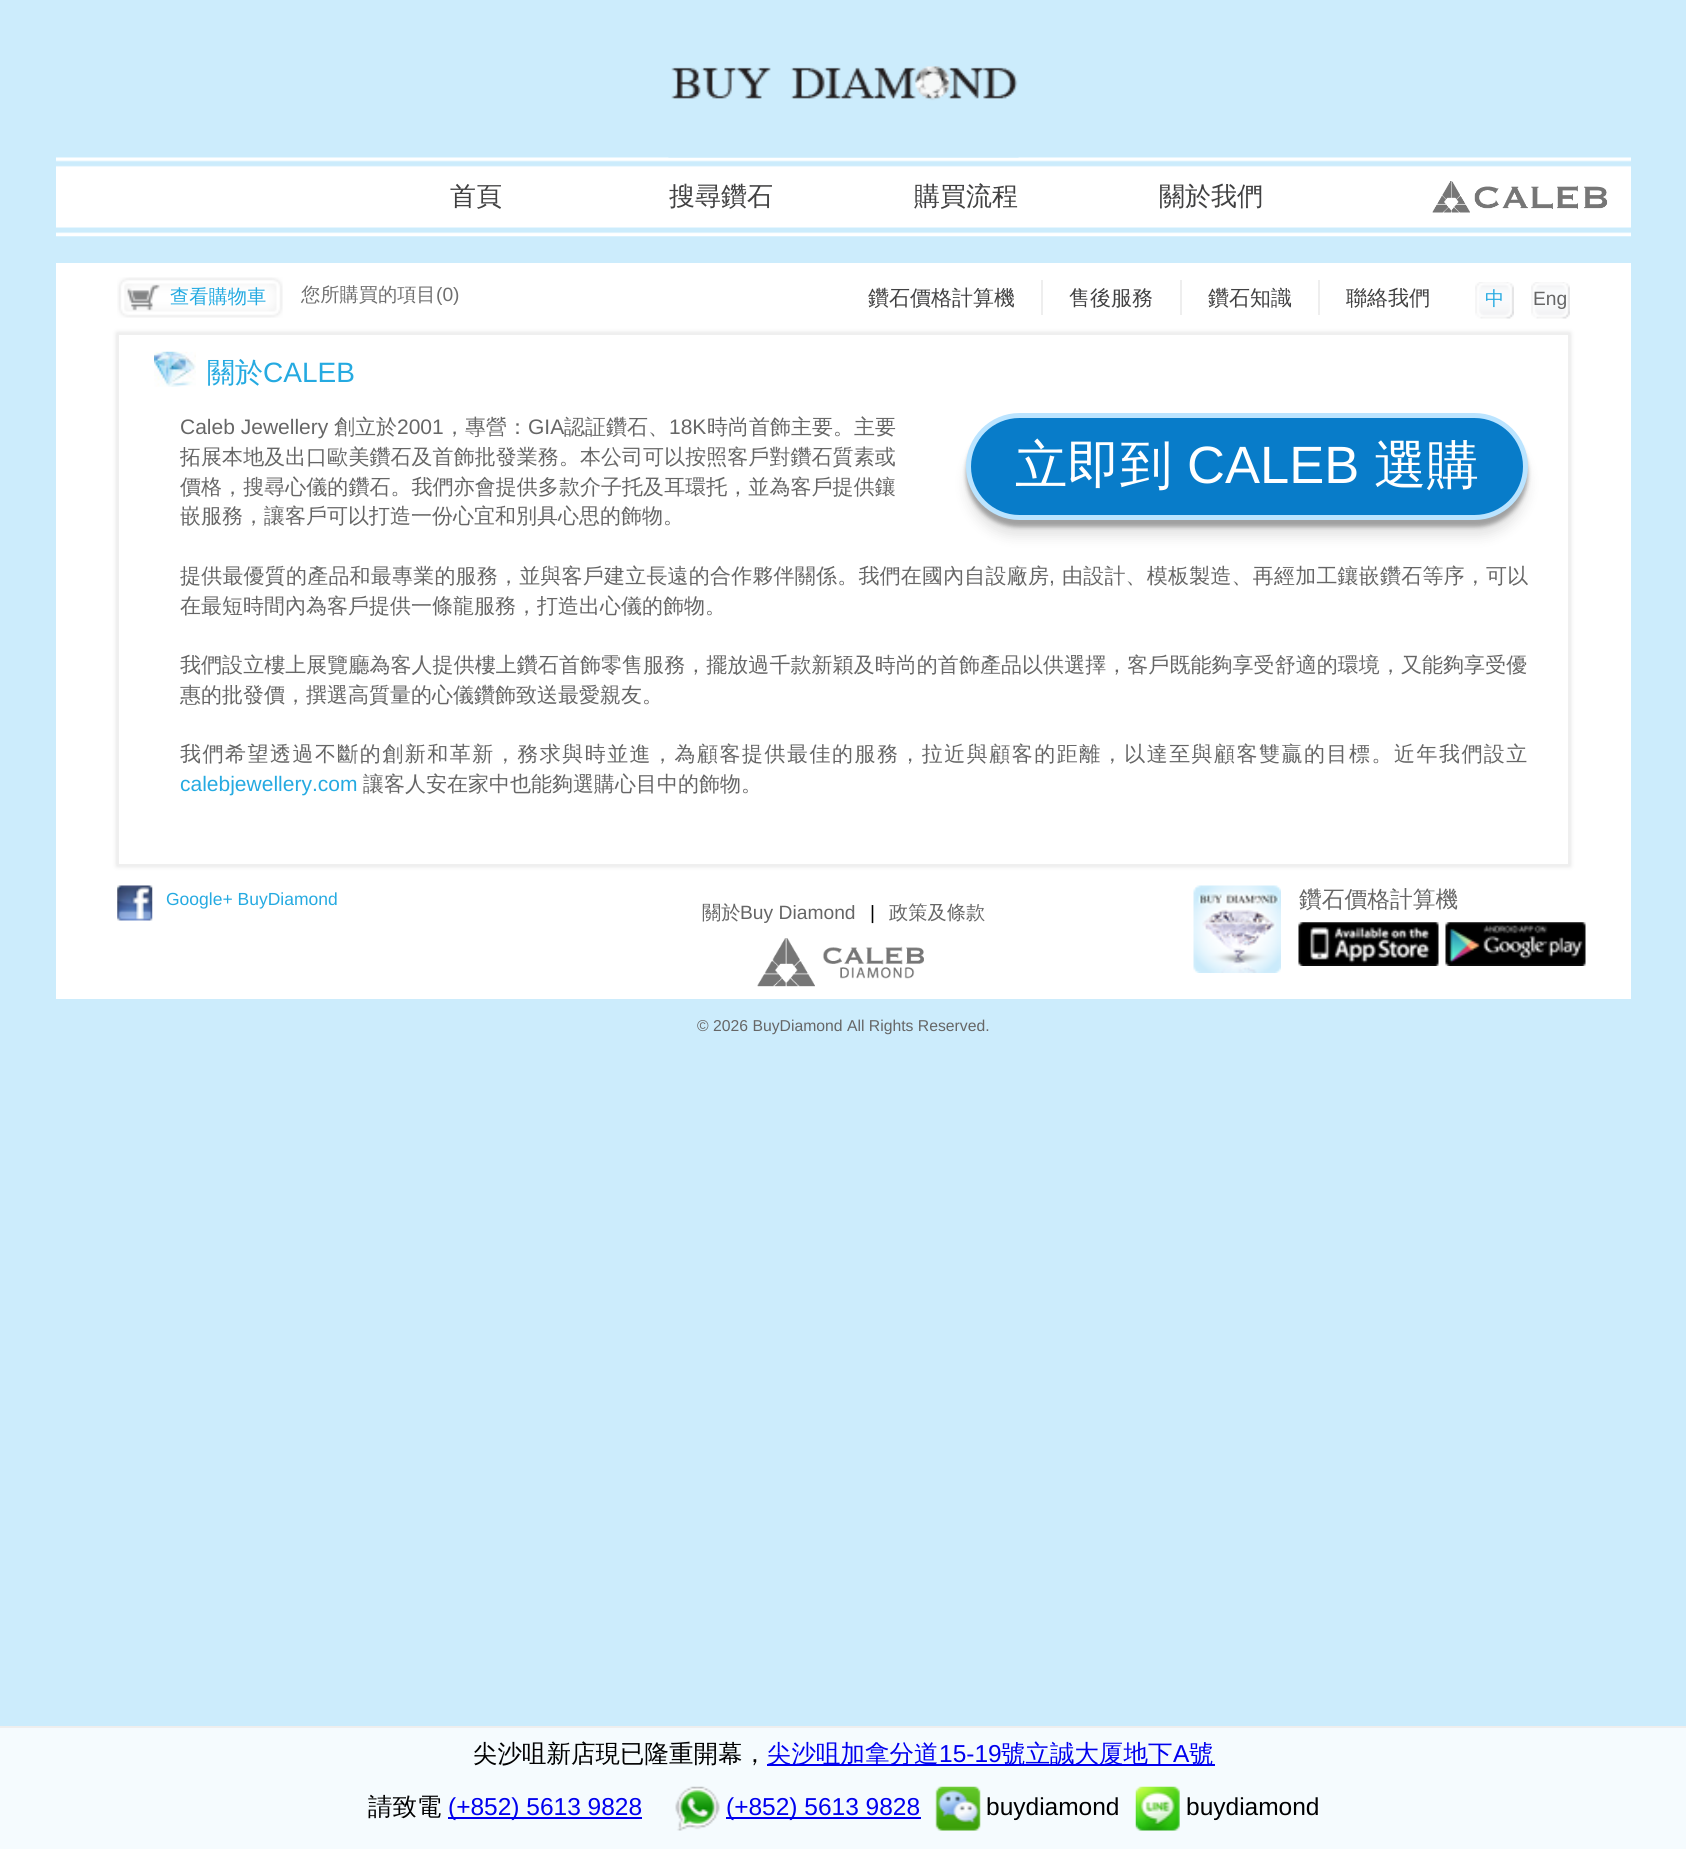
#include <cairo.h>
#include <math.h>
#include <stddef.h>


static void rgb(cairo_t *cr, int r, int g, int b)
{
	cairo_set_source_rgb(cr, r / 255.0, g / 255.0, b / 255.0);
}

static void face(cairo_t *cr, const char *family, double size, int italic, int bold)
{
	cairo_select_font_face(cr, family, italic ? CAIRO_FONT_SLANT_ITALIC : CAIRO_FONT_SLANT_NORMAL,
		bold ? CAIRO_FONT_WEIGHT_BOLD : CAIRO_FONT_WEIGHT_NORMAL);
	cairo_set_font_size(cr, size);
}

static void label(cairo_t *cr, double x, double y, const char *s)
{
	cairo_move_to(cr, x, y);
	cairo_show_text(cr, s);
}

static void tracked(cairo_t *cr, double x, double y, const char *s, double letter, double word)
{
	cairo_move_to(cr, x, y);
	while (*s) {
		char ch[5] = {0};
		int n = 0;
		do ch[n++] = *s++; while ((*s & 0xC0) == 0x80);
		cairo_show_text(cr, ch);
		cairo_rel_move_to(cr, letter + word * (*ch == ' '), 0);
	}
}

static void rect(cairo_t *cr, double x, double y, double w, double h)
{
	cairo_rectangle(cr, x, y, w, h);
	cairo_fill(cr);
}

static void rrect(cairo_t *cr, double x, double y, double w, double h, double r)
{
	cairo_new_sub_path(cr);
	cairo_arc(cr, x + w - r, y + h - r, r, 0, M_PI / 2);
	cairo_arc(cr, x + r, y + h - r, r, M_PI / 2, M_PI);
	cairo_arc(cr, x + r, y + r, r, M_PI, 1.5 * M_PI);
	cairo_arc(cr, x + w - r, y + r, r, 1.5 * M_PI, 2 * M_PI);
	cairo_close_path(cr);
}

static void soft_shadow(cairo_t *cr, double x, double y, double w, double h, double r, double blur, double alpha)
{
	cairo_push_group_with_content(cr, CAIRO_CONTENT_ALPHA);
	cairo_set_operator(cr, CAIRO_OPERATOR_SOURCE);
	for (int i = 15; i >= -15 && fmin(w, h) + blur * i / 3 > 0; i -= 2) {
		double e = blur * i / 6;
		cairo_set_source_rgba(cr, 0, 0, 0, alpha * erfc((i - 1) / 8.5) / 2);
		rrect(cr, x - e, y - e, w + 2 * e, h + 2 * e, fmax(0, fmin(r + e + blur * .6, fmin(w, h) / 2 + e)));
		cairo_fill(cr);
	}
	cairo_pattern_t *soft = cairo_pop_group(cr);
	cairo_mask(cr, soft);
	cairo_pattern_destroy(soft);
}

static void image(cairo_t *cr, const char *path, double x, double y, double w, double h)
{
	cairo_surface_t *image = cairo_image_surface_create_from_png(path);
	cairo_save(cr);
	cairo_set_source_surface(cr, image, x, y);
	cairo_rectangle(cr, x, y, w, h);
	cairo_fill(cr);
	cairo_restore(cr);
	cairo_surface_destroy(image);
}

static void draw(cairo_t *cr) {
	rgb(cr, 204, 236, 252);
	cairo_paint(cr);
	image(cr, "image1.png", 56, 157, 1575, 80);
	image(cr, "image0.png", 668, 66, 351, 92);
	face(cr, "WenQuanYi Zen Hei Medium", 26, 0, 0);
	rgb(cr, 65, 65, 66);
	label(cr, 450, 205, "首頁");
	label(cr, 669, 205, "搜尋鑽石");
	label(cr, 914, 205, "購買流程");
	label(cr, 1159, 205, "關於我們");
	image(cr, "image2.png", 1432, 181, 176, 32);
	rgb(cr, 255, 255, 255);
	rect(cr, 56, 263, 1575, 736);
	image(cr, "image3.png", 117, 277, 166, 41);
	face(cr, "WenQuanYi Zen Hei Medium", 19.25, 0, 0);
	rgb(cr, 37, 170, 225);
	label(cr, 170, 303, "查看購物車");
	rgb(cr, 111, 111, 111);
	label(cr, 301, 301, "您所購買的項目");
	face(cr, "Liberation Sans", 19.25, 0, 0);
	label(cr, 436, 301, "(0)");
	image(cr, "image4.png", 1475, 282, 39, 37);
	face(cr, "WenQuanYi Zen Hei Medium", 19.25, 0, 0);
	rgb(cr, 37, 170, 225);
	label(cr, 1485, 305, "中");
	image(cr, "image5.png", 1531, 282, 39, 37);
	face(cr, "Liberation Sans", 19.25, 0, 0);
	rgb(cr, 102, 102, 102);
	label(cr, 1533, 305, "Eng");
	cairo_save(cr);
	cairo_set_fill_rule(cr, CAIRO_FILL_RULE_EVEN_ODD);
	cairo_new_path(cr);
	cairo_move_to(cr, 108, 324);
	cairo_line_to(cr, 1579, 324);
	cairo_line_to(cr, 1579, 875);
	cairo_line_to(cr, 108, 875);
	cairo_close_path(cr);
	cairo_move_to(cr, 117, 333);
	cairo_line_to(cr, 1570, 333);
	cairo_line_to(cr, 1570, 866);
	cairo_line_to(cr, 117, 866);
	cairo_close_path(cr);
	cairo_clip(cr);
	rgb(cr, 221, 221, 221);
	soft_shadow(cr, 117, 333, 1453, 533, 0, 2.5, 1);
	cairo_restore(cr);
	cairo_rectangle(cr, 118, 334, 1451, 531);
	rgb(cr, 239, 239, 239);
	cairo_stroke(cr);
	image(cr, "image6.png", 154, 351, 42, 36);
	face(cr, "WenQuanYi Zen Hei Medium", 28, 0, 0);
	rgb(cr, 37, 170, 225);
	label(cr, 207, 382, "關於");
	face(cr, "Liberation Sans", 28, 0, 0);
	label(cr, 263, 382, "CALEB");
	face(cr, "Liberation Sans", 21, 0, 0);
	rgb(cr, 102, 102, 102);
	label(cr, 180, 434, "Caleb Jewellery");
	face(cr, "WenQuanYi Zen Hei Medium", 21, 0, 0);
	label(cr, 334, 434, "創立於");
	face(cr, "Liberation Sans", 21, 0, 0);
	label(cr, 397, 434, "2001");
	face(cr, "WenQuanYi Zen Hei Medium", 21, 0, 0);
	label(cr, 444, 434, "，專營：");
	face(cr, "Liberation Sans", 21, 0, 0);
	label(cr, 528, 434, "GIA");
	face(cr, "WenQuanYi Zen Hei Medium", 21, 0, 0);
	label(cr, 564, 434, "認証鑽石、");
	face(cr, "Liberation Sans", 21, 0, 0);
	label(cr, 669, 434, "18K");
	face(cr, "WenQuanYi Zen Hei Medium", 21, 0, 0);
	label(cr, 707, 434, "時尚首飾主要。主要");
	tracked(cr, 180, 464, "拓展本地及出口歐美鑽石及首飾批發業務。本公司可以按照客戶對鑽石質素或", 0.05, 0);
	rgb(cr, 0, 0, 0);
	soft_shadow(cr, 966, 420, 562, 107, 53.5, 2, 0.3);
	soft_shadow(cr, 966, 431, 562, 106, 53, 6, 0.1);
	rgb(cr, 8, 124, 201);
	rrect(cr, 968.5, 415.5, 557, 102, 51);
	cairo_fill_preserve(cr);
	rgb(cr, 187, 228, 255);
	cairo_set_line_width(cr, 5);
	cairo_stroke(cr);
	face(cr, "WenQuanYi Zen Hei Medium", 52.5, 0, 0);
	rgb(cr, 255, 255, 255);
	label(cr, 1015, 483, "立即到");
	face(cr, "Liberation Sans", 52.5, 0, 0);
	label(cr, 1187, 483, "CALEB");
	face(cr, "WenQuanYi Zen Hei Medium", 52.5, 0, 0);
	label(cr, 1374, 483, "選購");
	face(cr, "WenQuanYi Zen Hei Medium", 21, 0, 0);
	rgb(cr, 102, 102, 102);
	tracked(cr, 180, 494, "價格，搜尋心儀的鑽石。我們亦會提供多款介子托及耳環托，並為客戶提供鑲", 0.05, 0);
	label(cr, 180, 523, "嵌服務，讓客戶可以打造一份心宜和別具心思的飾物。");
	tracked(cr, 180, 583, "提供最優質的產品和最專業的服務，並與客戶建立長遠的合作夥伴關係。我們在國內自設廠房", 0.2, 0);
	face(cr, "Liberation Sans", 21, 0, 0);
	tracked(cr, 1049, 583, ",", 0.2, 0);
	face(cr, "WenQuanYi Zen Hei Medium", 21, 0, 0);
	tracked(cr, 1062, 583, "由設計、模板製造、再經加工鑲嵌鑽石等序，可以", 0.2, 0);
	label(cr, 180, 613, "在最短時間內為客戶提供一條龍服務，打造出心儀的飾物。");
	tracked(cr, 180, 672, "我們設立樓上展覽廳為客人提供樓上鑽石首飾零售服務，擺放過千款新穎及時尚的首飾產品以供選擇，客戶既能夠享受舒適的環境，又能夠享受優", 0.05, 0);
	label(cr, 180, 702, "惠的批發價，撰選高質量的心儀鑽飾致送最愛親友。");
	tracked(cr, 180, 761, "我們希望透過不斷的創新和革新，務求與時並進，為顧客提供最佳的服務，拉近與顧客的距離，以達至與顧客雙贏的目標。近年我們設立", 1.48, 0);
	face(cr, "Liberation Sans", 21, 0, 0);
	rgb(cr, 37, 170, 225);
	label(cr, 180, 791, "calebjewellery.com");
	face(cr, "WenQuanYi Zen Hei Medium", 21, 0, 0);
	rgb(cr, 102, 102, 102);
	label(cr, 363, 791, "讓客人安在家中也能夠選購心目中的飾物。");
	image(cr, "image7.png", 117, 885, 36, 36);
	face(cr, "Liberation Sans", 17.5, 0, 0);
	rgb(cr, 37, 170, 225);
	label(cr, 166, 905, "Google+ BuyDiamond");
	image(cr, "image8.png", 1193, 885, 88, 88);
	face(cr, "WenQuanYi Zen Hei Medium", 22.75, 0, 0);
	rgb(cr, 102, 102, 102);
	label(cr, 1299, 907, "鑽石價格計算機");
	image(cr, "image9.png", 1298, 922, 141, 44);
	image(cr, "image10.png", 1445, 922, 141, 44);
	face(cr, "WenQuanYi Zen Hei Medium", 19.25, 0, 0);
	label(cr, 702, 919, "關於");
	face(cr, "Liberation Sans", 19.25, 0, 0);
	label(cr, 740, 919, "Buy Diamond");
	rgb(cr, 0, 0, 0);
	label(cr, 870, 919, "|");
	face(cr, "WenQuanYi Zen Hei Medium", 19.25, 0, 0);
	rgb(cr, 102, 102, 102);
	label(cr, 889, 919, "政策及條款");
	face(cr, "WenQuanYi Zen Hei Medium", 21, 0, 0);
	rgb(cr, 65, 65, 66);
	label(cr, 868, 305, "鑽石價格計算機");
	rgb(cr, 238, 238, 238);
	rect(cr, 1041, 280, 2, 35);
	rgb(cr, 65, 65, 66);
	label(cr, 1069, 305, "售後服務");
	rgb(cr, 238, 238, 238);
	rect(cr, 1180, 280, 2, 35);
	rgb(cr, 65, 65, 66);
	label(cr, 1208, 305, "鑽石知識");
	rgb(cr, 238, 238, 238);
	rect(cr, 1318, 280, 2, 35);
	rgb(cr, 65, 65, 66);
	label(cr, 1346, 305, "聯絡我們");
	image(cr, "image11.png", 757, 938, 167, 49);
	face(cr, "Liberation Sans", 15.75, 0, 0);
	rgb(cr, 102, 102, 102);
	label(cr, 697, 1031, "© 2026 BuyDiamond All Rights Reserved.");
	rgb(cr, 245, 251, 254);
	rect(cr, 0, 1728, 1686, 121);
	rgb(cr, 238, 238, 238);
	rect(cr, 0, 1726, 1686, 2);
	face(cr, "WenQuanYi Zen Hei Medium", 24.5, 0, 0);
	rgb(cr, 0, 0, 0);
	label(cr, 473, 1762, "尖沙咀新店現已隆重開幕，");
	rgb(cr, 0, 0, 238);
	rect(cr, 767, 1764, 448, 2);
	label(cr, 767, 1762, "尖沙咀加拿分道");
	face(cr, "Liberation Sans", 24.5, 0, 0);
	label(cr, 939, 1762, "15-19");
	face(cr, "WenQuanYi Zen Hei Medium", 24.5, 0, 0);
	label(cr, 1001, 1762, "號立誠大厦地下");
	face(cr, "Liberation Sans", 24.5, 0, 0);
	label(cr, 1173, 1762, "A");
	face(cr, "WenQuanYi Zen Hei Medium", 24.5, 0, 0);
	label(cr, 1189, 1762, "號");
	rgb(cr, 0, 0, 0);
	label(cr, 368, 1815, "請致電");
	rgb(cr, 0, 0, 238);
	rect(cr, 448, 1817, 194, 2);
	face(cr, "Liberation Sans", 24.5, 0, 0);
	label(cr, 448, 1815, "(+852) 5613 9828");
	image(cr, "image12.png", 675, 1786, 45, 45);
	rect(cr, 726, 1817, 195, 2);
	label(cr, 726, 1815, "(+852) 5613 9828");
	image(cr, "image13.png", 935, 1786, 46, 45);
	rgb(cr, 0, 0, 0);
	label(cr, 986, 1815, "buydiamond");
	image(cr, "image14.png", 1135, 1786, 45, 45);
	label(cr, 1186, 1815, "buydiamond");
}

int main(void) {
	cairo_surface_t *surface = cairo_image_surface_create(CAIRO_FORMAT_RGB24, 1686, 1849);
	cairo_t *cr = cairo_create(surface);
	cairo_font_options_t *options = cairo_font_options_create();
	cairo_font_options_set_hint_metrics(options, CAIRO_HINT_METRICS_OFF);
	cairo_font_options_set_hint_style(options, CAIRO_HINT_STYLE_NONE);
	cairo_set_font_options(cr, options);
	cairo_set_miter_limit(cr, 4);
	draw(cr);
	cairo_surface_write_to_png(surface, "render.png");
	cairo_font_options_destroy(options);
	cairo_destroy(cr);
	cairo_surface_destroy(surface);
	return 0;
}
